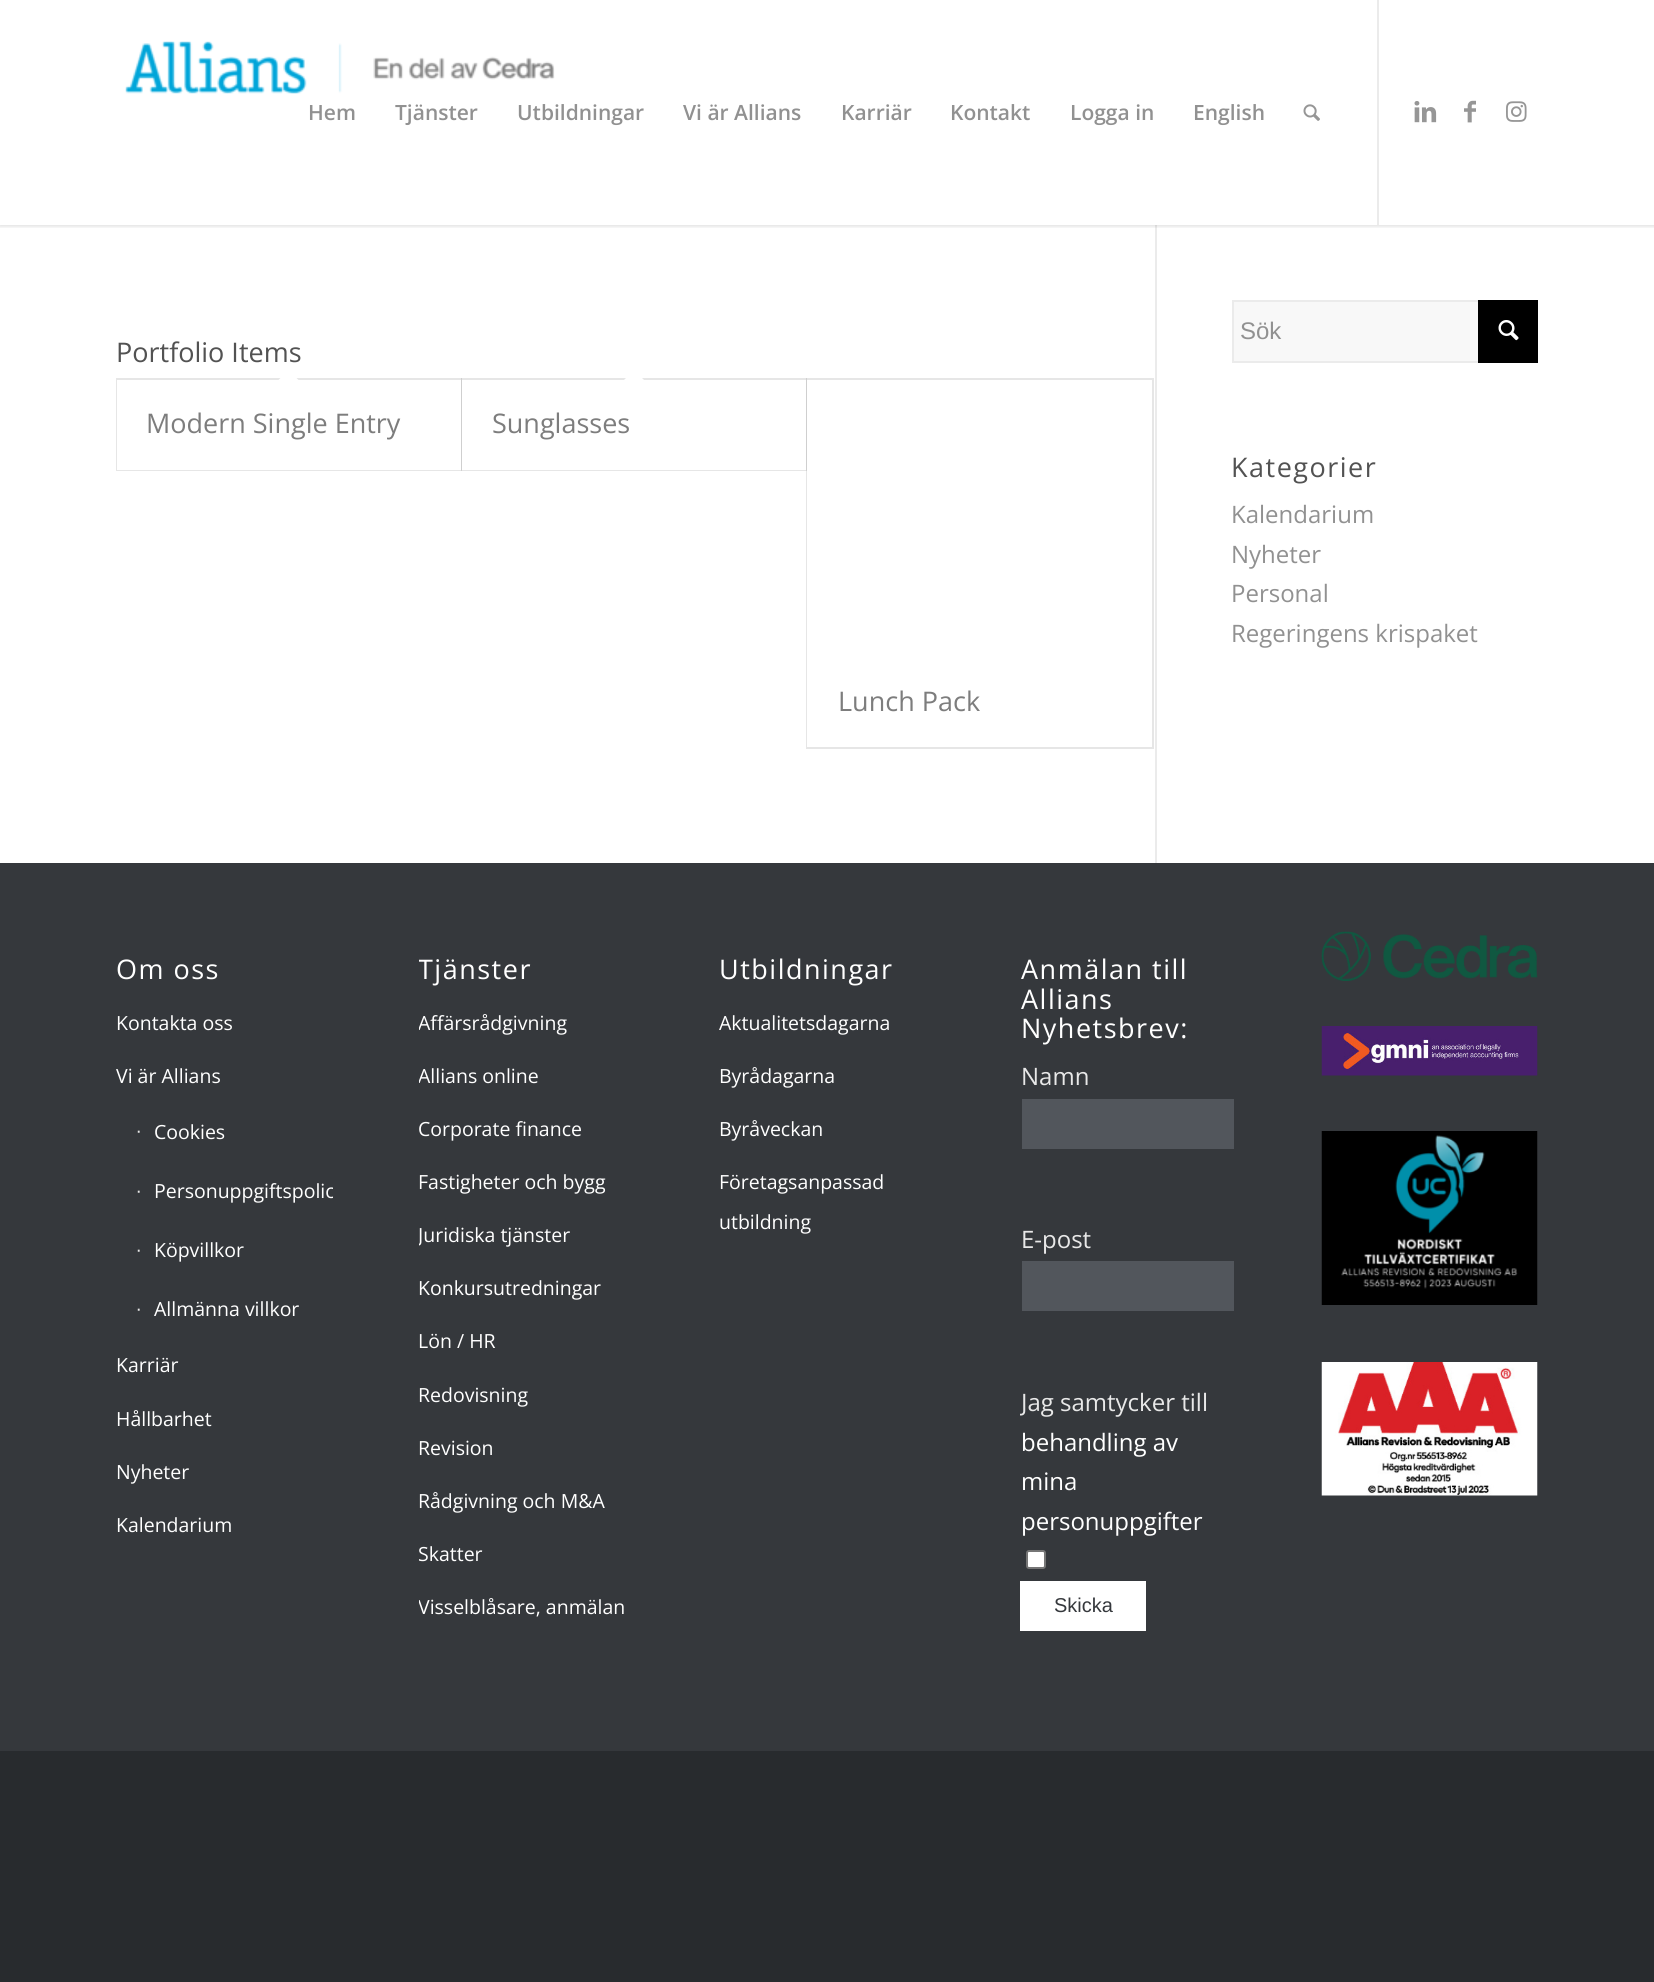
#include <cairo.h>
#include <math.h>
#include <stddef.h>


static void rgb(cairo_t *cr, int r, int g, int b)
{
	cairo_set_source_rgb(cr, r / 255.0, g / 255.0, b / 255.0);
}

static void face(cairo_t *cr, const char *family, double size, int italic, int bold)
{
	cairo_select_font_face(cr, family, italic ? CAIRO_FONT_SLANT_ITALIC : CAIRO_FONT_SLANT_NORMAL,
		bold ? CAIRO_FONT_WEIGHT_BOLD : CAIRO_FONT_WEIGHT_NORMAL);
	cairo_set_font_size(cr, size);
}

static void label(cairo_t *cr, double x, double y, const char *s)
{
	cairo_move_to(cr, x, y);
	cairo_show_text(cr, s);
}

static void tracked(cairo_t *cr, double x, double y, const char *s, double letter, double word)
{
	cairo_move_to(cr, x, y);
	while (*s) {
		char ch[5] = {0};
		int n = 0;
		do ch[n++] = *s++; while ((*s & 0xC0) == 0x80);
		cairo_show_text(cr, ch);
		cairo_rel_move_to(cr, letter + word * (*ch == ' '), 0);
	}
}

static void rect(cairo_t *cr, double x, double y, double w, double h)
{
	cairo_rectangle(cr, x, y, w, h);
	cairo_fill(cr);
}

static void rrect(cairo_t *cr, double x, double y, double w, double h, double r)
{
	cairo_new_sub_path(cr);
	cairo_arc(cr, x + w - r, y + h - r, r, 0, M_PI / 2);
	cairo_arc(cr, x + r, y + h - r, r, M_PI / 2, M_PI);
	cairo_arc(cr, x + r, y + r, r, M_PI, 1.5 * M_PI);
	cairo_arc(cr, x + w - r, y + r, r, 1.5 * M_PI, 2 * M_PI);
	cairo_close_path(cr);
}

static void soft_shadow(cairo_t *cr, double x, double y, double w, double h, double r, double blur, double alpha)
{
	cairo_push_group_with_content(cr, CAIRO_CONTENT_ALPHA);
	cairo_set_operator(cr, CAIRO_OPERATOR_SOURCE);
	for (int i = 15; i >= -15 && fmin(w, h) + blur * i / 3 > 0; i -= 2) {
		double e = blur * i / 6;
		cairo_set_source_rgba(cr, 0, 0, 0, alpha * erfc((i - 1) / 8.5) / 2);
		rrect(cr, x - e, y - e, w + 2 * e, h + 2 * e, fmax(0, fmin(r + e + blur * .6, fmin(w, h) / 2 + e)));
		cairo_fill(cr);
	}
	cairo_pattern_t *soft = cairo_pop_group(cr);
	cairo_mask(cr, soft);
	cairo_pattern_destroy(soft);
}

static void image(cairo_t *cr, const char *path, double x, double y, double w, double h)
{
	cairo_surface_t *image = cairo_image_surface_create_from_png(path);
	cairo_save(cr);
	cairo_set_source_surface(cr, image, x, y);
	cairo_rectangle(cr, x, y, w, h);
	cairo_fill(cr);
	cairo_restore(cr);
	cairo_surface_destroy(image);
}

static void draw(cairo_t *cr) {
	rgb(cr, 40, 43, 46);
	cairo_paint(cr);
	rgb(cr, 255, 255, 255);
	rect(cr, 0, 0, 1654, 863);
	rgb(cr, 235, 235, 235);
	rect(cr, 1155, 225, 2, 638);
	cairo_save(cr);
	cairo_rectangle(cr, 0, 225, 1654, 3);
	cairo_clip(cr);
	rgb(cr, 0, 0, 0);
	soft_shadow(cr, -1, -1, 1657, 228, 0, 1.5, 0.1);
	cairo_restore(cr);
	image(cr, "image0.png", 125, 41, 430, 53);
	rect(cr, 1377, 0, 2, 225);
	face(cr, "Open Sans SemiBold", 21, 0, 0);
	rgb(cr, 145, 145, 145);
	label(cr, 308, 120, "Hem");
	label(cr, 395, 120, "Tjänster");
	label(cr, 517, 120, "Utbildningar");
	label(cr, 683, 120, "Vi är Allians");
	label(cr, 841, 120, "Karriär");
	label(cr, 950, 120, "Kontakt");
	label(cr, 1070, 120, "Logga in");
	label(cr, 1193, 120, "English");
	image(cr, "image1.png", 1303, 104, 17, 17);
	image(cr, "image2.png", 1414, 101, 23, 22);
	image(cr, "image3.png", 1464, 100, 12, 23);
	image(cr, "image4.png", 1506, 101, 21, 21);
	face(cr, "Open Sans", 27, 0, 0);
	rgb(cr, 82, 82, 82);
	label(cr, 116, 362, "Portfolio Items");
	cairo_rectangle(cr, 117, 379, 344, 91);
	rgb(cr, 230, 230, 230);
	cairo_stroke(cr);
	rgb(cr, 255, 255, 255);
	rect(cr, 117, 380, 344, 90);
	cairo_new_path(cr);
	cairo_move_to(cr, 288.5, 370);
	cairo_line_to(cr, 299, 380.5);
	cairo_line_to(cr, 288.5, 391.5);
	cairo_line_to(cr, 278, 380.5);
	cairo_close_path(cr);
	cairo_fill(cr);
	rgb(cr, 125, 125, 125);
	label(cr, 146, 433, "Modern Single Entry");
	cairo_rectangle(cr, 462, 379, 344, 91);
	cairo_set_source_rgba(cr, 0, 0, 0, 0.1);
	cairo_stroke(cr);
	rgb(cr, 255, 255, 255);
	rect(cr, 462, 380, 344, 90);
	cairo_new_path(cr);
	cairo_move_to(cr, 634, 370);
	cairo_line_to(cr, 644.5, 380.5);
	cairo_line_to(cr, 634, 391.5);
	cairo_line_to(cr, 623.5, 380.5);
	cairo_close_path(cr);
	cairo_fill(cr);
	rgb(cr, 125, 125, 125);
	label(cr, 492, 433, "Sunglasses");
	cairo_rectangle(cr, 807, 379, 346, 369);
	cairo_set_source_rgba(cr, 0, 0, 0, 0.1);
	cairo_stroke(cr);
	rgb(cr, 255, 255, 255);
	rect(cr, 807, 380, 1, 367);
	rgb(cr, 125, 125, 125);
	label(cr, 838, 711, "Lunch Pack");
	rgb(cr, 248, 248, 248);
	rect(cr, 1234, 302, 244, 59);
	cairo_rectangle(cr, 1233, 301, 304, 61);
	rgb(cr, 235, 235, 235);
	cairo_stroke(cr);
	face(cr, "Liberation Sans", 24, 0, 0);
	rgb(cr, 145, 145, 145);
	label(cr, 1240, 339, "Sök");
	rgb(cr, 0, 0, 0);
	rect(cr, 1478, 300, 60, 63);
	image(cr, "image5.png", 1498, 320, 21, 21);
	face(cr, "Open Sans", 27, 0, 0);
	rgb(cr, 82, 82, 82);
	tracked(cr, 1231, 477, "Kategorier", 1.5, 0);
	face(cr, "Open Sans", 24, 0, 0);
	rgb(cr, 145, 145, 145);
	label(cr, 1231, 523, "Kalendarium");
	label(cr, 1231, 563, "Nyheter");
	label(cr, 1231, 602, "Personal");
	label(cr, 1231, 642, "Regeringens krispaket");
	rgb(cr, 53, 56, 60);
	rect(cr, 0, 863, 1654, 888);
	face(cr, "Open Sans", 27, 0, 0);
	rgb(cr, 255, 255, 255);
	tracked(cr, 116, 979, "Om oss", 1.5, 0);
	face(cr, "Open Sans", 19.5, 0, 0);
	label(cr, 116, 1030, "Kontakta oss");
	label(cr, 116, 1083, "Vi är Allians");
	face(cr, "Liberation Sans", 19.5, 0, 0);
	rgb(cr, 232, 232, 232);
	label(cr, 136, 1137, "∙");
	face(cr, "Open Sans", 19.5, 0, 0);
	rgb(cr, 255, 255, 255);
	label(cr, 154, 1139, "Cookies");
	face(cr, "Liberation Sans", 19.5, 0, 0);
	rgb(cr, 232, 232, 232);
	label(cr, 136, 1197, "∙");
	cairo_save(cr);
	cairo_rectangle(cr, 117, 932, 216, 621);
	cairo_clip(cr);
	face(cr, "Open Sans", 19.5, 0, 0);
	rgb(cr, 255, 255, 255);
	label(cr, 154, 1198, "Personuppgiftspolic");
	cairo_restore(cr);
	label(cr, 136, 1256, "∙");
	face(cr, "Open Sans", 19.5, 0, 0);
	rgb(cr, 255, 255, 255);
	label(cr, 154, 1257, "Köpvillkor");
	face(cr, "Liberation Sans", 19.5, 0, 0);
	rgb(cr, 232, 232, 232);
	label(cr, 136, 1315, "∙");
	face(cr, "Open Sans", 19.5, 0, 0);
	rgb(cr, 255, 255, 255);
	label(cr, 154, 1316, "Allmänna villkor");
	label(cr, 116, 1372, "Karriär");
	label(cr, 116, 1426, "Hållbarhet");
	label(cr, 116, 1479, "Nyheter");
	label(cr, 116, 1532, "Kalendarium");
	cairo_save(cr);
	cairo_rectangle(cr, 419, 932, 216, 702);
	cairo_clip(cr);
	face(cr, "Open Sans", 27, 0, 0);
	tracked(cr, 418, 979, "Tjänster", 1.5, 0);
	face(cr, "Open Sans", 19.5, 0, 0);
	label(cr, 418, 1030, "Affärsrådgivning");
	label(cr, 418, 1083, "Allians online");
	cairo_restore(cr);
	label(cr, 418, 1136, "Corporate finance");
	label(cr, 418, 1189, "Fastigheter och bygg");
	cairo_save(cr);
	cairo_rectangle(cr, 419, 932, 216, 702);
	cairo_clip(cr);
	label(cr, 418, 1242, "Juridiska tjänster");
	cairo_restore(cr);
	label(cr, 418, 1295, "Konkursutredningar");
	label(cr, 418, 1348, "Lön / HR");
	label(cr, 418, 1402, "Redovisning");
	label(cr, 418, 1455, "Revision");
	label(cr, 418, 1508, "Rådgivning och M&A");
	label(cr, 418, 1561, "Skatter");
	cairo_save(cr);
	cairo_rectangle(cr, 419, 932, 216, 702);
	cairo_clip(cr);
	label(cr, 418, 1614, "Visselblåsare, anmälan");
	cairo_restore(cr);
	face(cr, "Open Sans", 27, 0, 0);
	tracked(cr, 719, 979, "Utbildningar", 1.5, 0);
	face(cr, "Open Sans", 19.5, 0, 0);
	label(cr, 719, 1030, "Aktualitetsdagarna");
	label(cr, 719, 1083, "Byrådagarna");
	label(cr, 719, 1136, "Byråveckan");
	label(cr, 719, 1189, "Företagsanpassad");
	label(cr, 719, 1229, "utbildning");
	face(cr, "Open Sans", 27, 0, 0);
	tracked(cr, 1021, 979, "Anmälan till", 1.5, 0);
	tracked(cr, 1021, 1009, "Allians", 1.5, 0);
	tracked(cr, 1021, 1038, "Nyhetsbrev:", 1.5, 0);
	face(cr, "Open Sans", 24, 0, 0);
	rgb(cr, 232, 232, 232);
	label(cr, 1021, 1085, "Namn");
	rgb(cr, 82, 86, 92);
	rect(cr, 1022, 1099, 212, 50);
	rgb(cr, 232, 232, 232);
	label(cr, 1021, 1248, "E-post");
	rgb(cr, 82, 86, 92);
	rect(cr, 1022, 1261, 212, 50);
	cairo_save(cr);
	cairo_rectangle(cr, 1020, 932, 216, 729);
	cairo_clip(cr);
	rgb(cr, 232, 232, 232);
	label(cr, 1021, 1411, "Jag samtycker till");
	cairo_restore(cr);
	rgb(cr, 255, 255, 255);
	label(cr, 1021, 1451, "behandling av");
	label(cr, 1021, 1490, "mina");
	label(cr, 1021, 1530, "personuppgifter");
	rrect(cr, 1027, 1551, 18, 17, 2);
	cairo_fill_preserve(cr);
	rgb(cr, 118, 118, 118);
	cairo_stroke(cr);
	rgb(cr, 255, 255, 255);
	rect(cr, 1020, 1581, 126, 50);
	face(cr, "Liberation Sans", 20, 0, 0);
	rgb(cr, 53, 56, 60);
	label(cr, 1054, 1612, "Skicka");
	image(cr, "image6.png", 1321, 931, 217, 50);
	image(cr, "image7.png", 1321, 1026, 217, 50);
	image(cr, "image8.png", 1321, 1131, 217, 174);
	image(cr, "image9.png", 1321, 1362, 217, 134);
}

int main(void) {
	cairo_surface_t *surface = cairo_image_surface_create(CAIRO_FORMAT_RGB24, 1654, 1982);
	cairo_t *cr = cairo_create(surface);
	cairo_font_options_t *options = cairo_font_options_create();
	cairo_font_options_set_hint_metrics(options, CAIRO_HINT_METRICS_OFF);
	cairo_font_options_set_hint_style(options, CAIRO_HINT_STYLE_NONE);
	cairo_set_font_options(cr, options);
	cairo_set_miter_limit(cr, 4);
	draw(cr);
	cairo_surface_write_to_png(surface, "render.png");
	cairo_font_options_destroy(options);
	cairo_destroy(cr);
	cairo_surface_destroy(surface);
	return 0;
}
